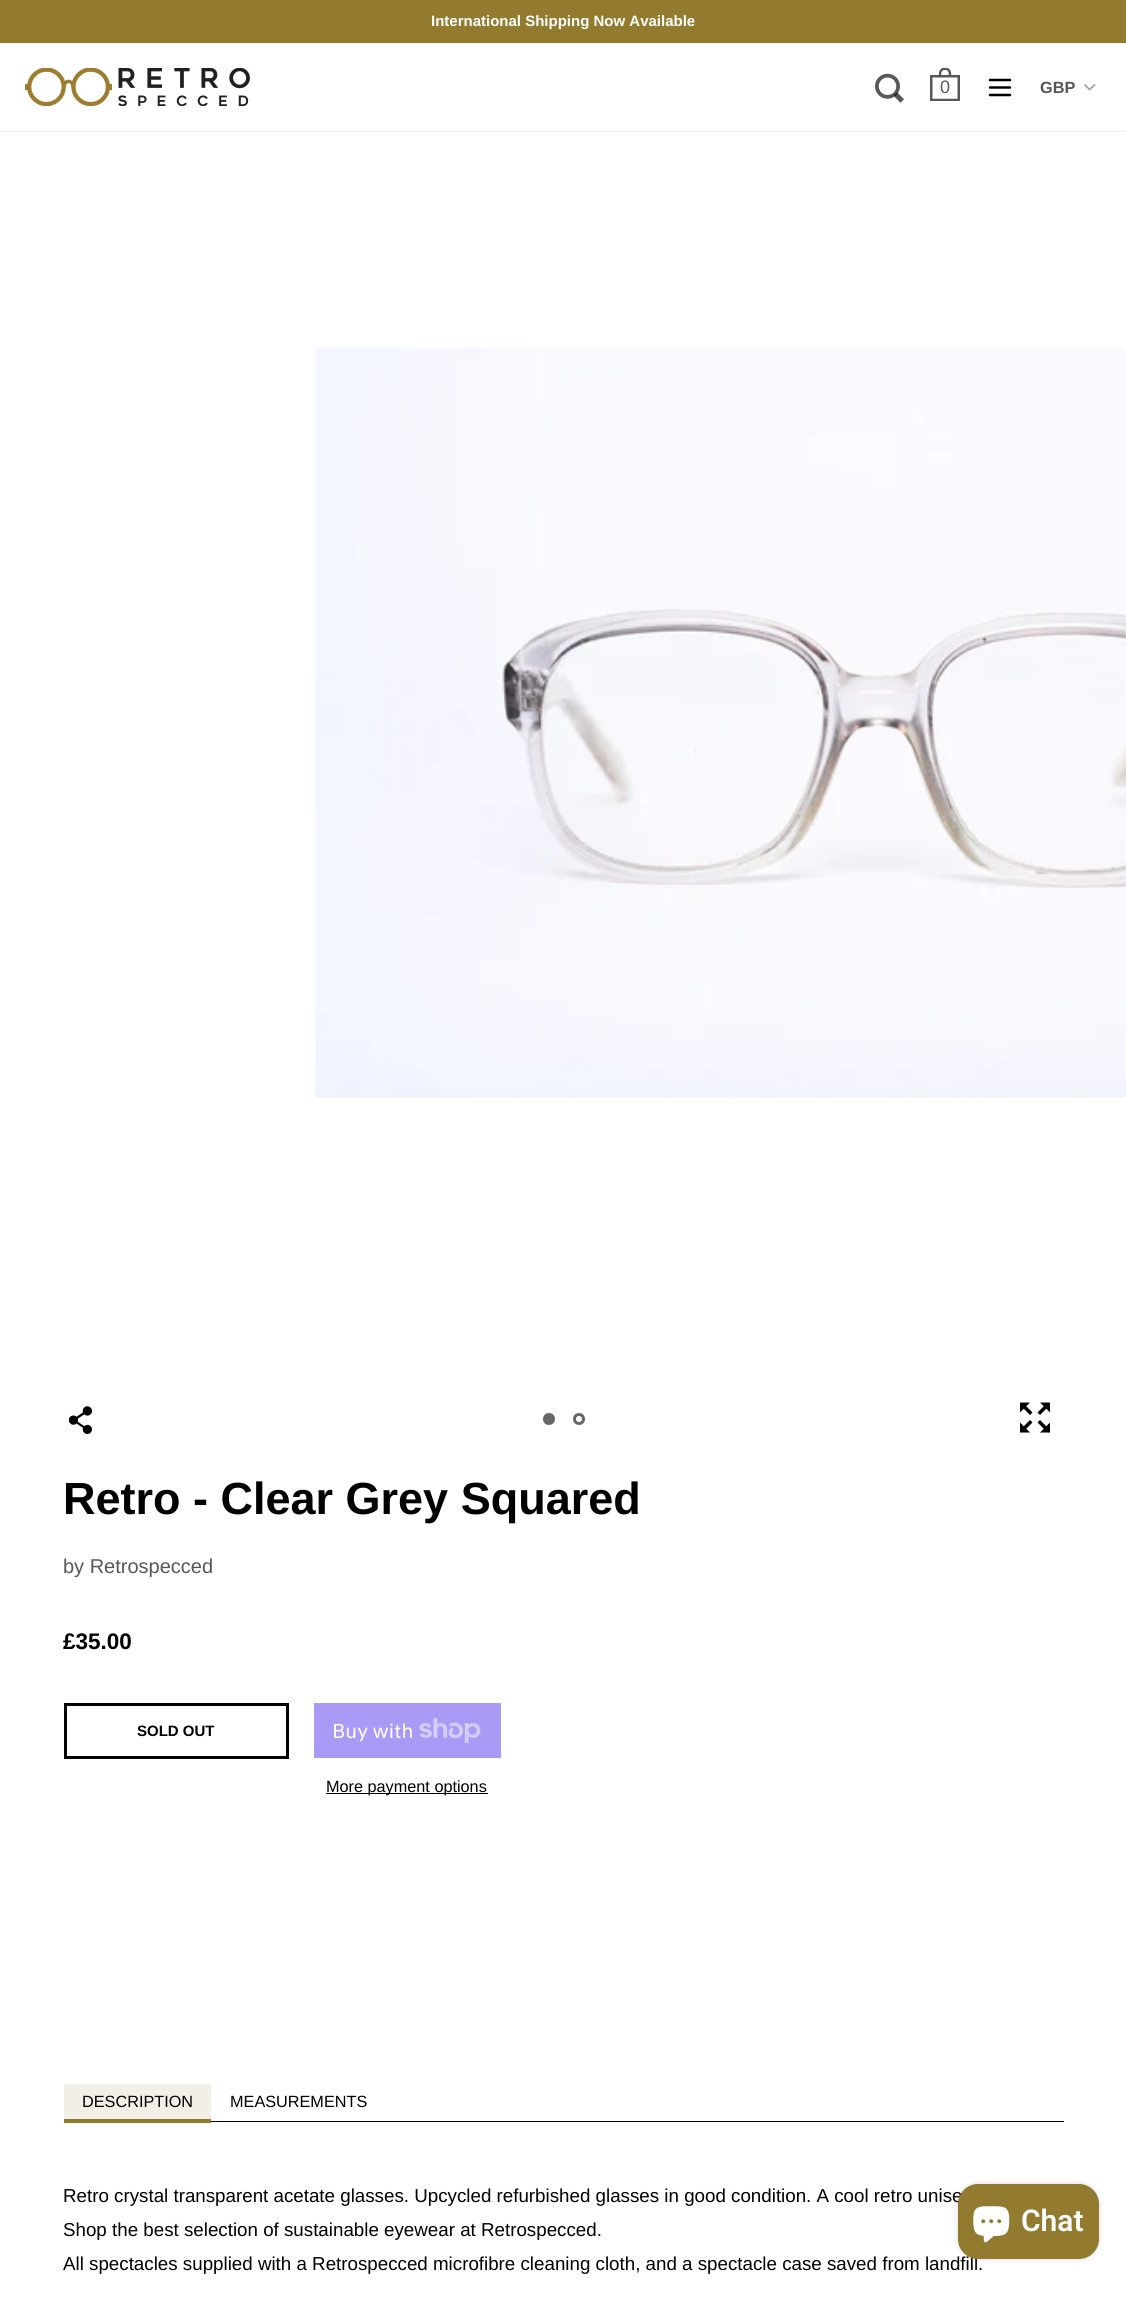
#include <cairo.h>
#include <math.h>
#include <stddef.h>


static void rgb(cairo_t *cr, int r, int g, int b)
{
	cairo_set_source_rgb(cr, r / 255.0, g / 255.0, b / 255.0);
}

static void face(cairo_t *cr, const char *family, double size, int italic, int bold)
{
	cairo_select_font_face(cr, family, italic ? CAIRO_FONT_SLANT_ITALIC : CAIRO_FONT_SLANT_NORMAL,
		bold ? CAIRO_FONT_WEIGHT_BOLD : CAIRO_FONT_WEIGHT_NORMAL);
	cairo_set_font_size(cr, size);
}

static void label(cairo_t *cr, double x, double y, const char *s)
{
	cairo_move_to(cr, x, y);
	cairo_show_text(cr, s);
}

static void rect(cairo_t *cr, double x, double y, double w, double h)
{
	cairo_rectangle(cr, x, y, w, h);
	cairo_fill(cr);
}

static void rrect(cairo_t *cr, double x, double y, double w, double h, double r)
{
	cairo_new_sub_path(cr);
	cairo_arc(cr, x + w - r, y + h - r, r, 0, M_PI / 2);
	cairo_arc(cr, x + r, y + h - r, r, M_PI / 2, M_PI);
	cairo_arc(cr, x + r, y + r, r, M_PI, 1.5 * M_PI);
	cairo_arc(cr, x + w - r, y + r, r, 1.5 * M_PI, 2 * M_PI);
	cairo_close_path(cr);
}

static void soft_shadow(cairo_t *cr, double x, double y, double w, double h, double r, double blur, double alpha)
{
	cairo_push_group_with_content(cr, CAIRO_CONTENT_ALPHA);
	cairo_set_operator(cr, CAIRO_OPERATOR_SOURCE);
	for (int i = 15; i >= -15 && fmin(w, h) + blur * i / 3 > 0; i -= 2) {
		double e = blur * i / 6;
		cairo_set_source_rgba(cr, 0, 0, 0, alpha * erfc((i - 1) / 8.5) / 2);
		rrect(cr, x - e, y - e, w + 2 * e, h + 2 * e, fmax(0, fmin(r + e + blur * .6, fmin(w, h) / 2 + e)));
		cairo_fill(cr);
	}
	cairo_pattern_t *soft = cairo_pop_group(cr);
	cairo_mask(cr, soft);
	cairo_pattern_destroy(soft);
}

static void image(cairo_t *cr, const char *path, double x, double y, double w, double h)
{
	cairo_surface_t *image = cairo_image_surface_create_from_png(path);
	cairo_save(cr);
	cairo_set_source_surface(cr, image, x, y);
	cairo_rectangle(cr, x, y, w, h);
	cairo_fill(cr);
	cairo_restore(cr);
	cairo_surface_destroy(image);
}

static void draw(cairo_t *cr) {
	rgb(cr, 255, 255, 255);
	cairo_paint(cr);
	rgb(cr, 242, 239, 230);
	rect(cr, 64, 2084, 147, 35);
	rgb(cr, 146, 123, 47);
	rect(cr, 0, 0, 1126, 43);
	face(cr, "Liberation Sans", 15, 0, 1);
	rgb(cr, 255, 255, 255);
	label(cr, 431, 26, "International Shipping Now Available");
	rgb(cr, 237, 237, 237);
	rect(cr, 0, 131, 1126, 1);
	image(cr, "image0.png", 25, 68, 225, 38);
	image(cr, "image1.png", 875, 73, 29, 30);
	image(cr, "image2.png", 930, 68, 30, 33);
	face(cr, "Liberation Sans", 18, 0, 0);
	rgb(cr, 87, 87, 87);
	label(cr, 940, 93, "0");
	cairo_new_path(cr);
	cairo_move_to(cr, 990, 80);
	cairo_line_to(cr, 1010, 80);
	cairo_move_to(cr, 990, 87.5);
	cairo_line_to(cr, 1010, 87.5);
	cairo_move_to(cr, 990, 95);
	cairo_line_to(cr, 1010, 95);
	rgb(cr, 0, 0, 0);
	cairo_set_line_width(cr, 2.5);
	cairo_set_line_cap(cr, CAIRO_LINE_CAP_ROUND);
	cairo_set_line_join(cr, CAIRO_LINE_JOIN_ROUND);
	cairo_stroke(cr);
	cairo_new_path(cr);
	cairo_move_to(cr, 1085, 85);
	cairo_line_to(cr, 1089.5, 89.5);
	cairo_line_to(cr, 1094.5, 85);
	rgb(cr, 157, 162, 171);
	cairo_set_line_width(cr, 1.8);
	cairo_stroke(cr);
	face(cr, "Liberation Sans", 16.25, 0, 1);
	rgb(cr, 87, 87, 87);
	label(cr, 1040, 93, "GBP");
	image(cr, "image3.png", 315, 347, 811, 751);
	rgb(cr, 102, 102, 102);
	cairo_arc(cr, 549, 1419, 4.5, 0, 2 * M_PI);
	cairo_fill_preserve(cr);
	cairo_set_line_width(cr, 3);
	cairo_set_line_cap(cr, CAIRO_LINE_CAP_BUTT);
	cairo_set_line_join(cr, CAIRO_LINE_JOIN_MITER);
	cairo_stroke(cr);
	cairo_arc(cr, 579, 1419, 4.5, 0, 2 * M_PI);
	cairo_stroke(cr);
	image(cr, "image4.png", 69, 1406, 23, 28);
	image(cr, "image5.png", 1020, 1402, 30, 31);
	face(cr, "Liberation Sans", 45, 0, 1);
	rgb(cr, 0, 0, 0);
	label(cr, 63, 1514, "Retro - Clear Grey Squared");
	face(cr, "Liberation Sans", 20, 0, 0);
	rgb(cr, 87, 87, 87);
	label(cr, 63, 1573, "by Retrospecced");
	face(cr, "Liberation Sans", 22.5, 0, 1);
	rgb(cr, 0, 0, 0);
	label(cr, 63, 1649, "£35.00");
	cairo_rectangle(cr, 65.5, 1704.5, 222, 53);
	cairo_stroke(cr);
	face(cr, "Liberation Sans", 15, 0, 1);
	label(cr, 137, 1736, "SOLD OUT");
	rgb(cr, 170, 153, 245);
	rect(cr, 314, 1703, 187, 55);
	face(cr, "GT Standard", 20, 0, 0);
	rgb(cr, 255, 255, 255);
	label(cr, 332, 1738, "Buy with");
	image(cr, "image6.png", 419, 1718, 62, 25);
	rgb(cr, 0, 0, 0);
	rect(cr, 326, 1793, 162, 1);
	face(cr, "Liberation Sans", 16.25, 0, 0);
	label(cr, 326, 1792, "More payment options");
	rect(cr, 211, 2121, 853, 1);
	rgb(cr, 146, 123, 47);
	rect(cr, 64, 2119, 147, 4);
	rgb(cr, 0, 0, 0);
	label(cr, 82, 2107, "DESCRIPTION");
	label(cr, 230, 2107, "MEASUREMENTS");
	face(cr, "Liberation Sans", 18.75, 0, 0);
	label(cr, 63, 2202, "Retro crystal transparent acetate glasses. Upcycled refurbished glasses in good condition. A cool retro unise");
	label(cr, 63, 2236, "Shop the best selection of sustainable eyewear at Retrospecced.");
	label(cr, 63, 2270, "All spectacles supplied with a Retrospecced microfibre cleaning cloth, and a spectacle case saved from landfill.");
	rgb(cr, 0, 0, 0);
	soft_shadow(cr, 958, 2184, 141, 75, 20, 3, 0.15);
	rgb(cr, 146, 123, 47);
	rrect(cr, 958, 2184, 141, 75, 20);
	cairo_fill(cr);
	image(cr, "image7.png", 973, 2206, 37, 37);
	face(cr, "Roboto SemiBold", 30, 0, 0);
	rgb(cr, 255, 255, 255);
	label(cr, 1021, 2231, "Chat");
}

int main(void) {
	cairo_surface_t *surface = cairo_image_surface_create(CAIRO_FORMAT_RGB24, 1126, 2309);
	cairo_t *cr = cairo_create(surface);
	cairo_font_options_t *options = cairo_font_options_create();
	cairo_font_options_set_hint_metrics(options, CAIRO_HINT_METRICS_OFF);
	cairo_font_options_set_hint_style(options, CAIRO_HINT_STYLE_NONE);
	cairo_set_font_options(cr, options);
	cairo_set_miter_limit(cr, 4);
	draw(cr);
	cairo_surface_write_to_png(surface, "render.png");
	cairo_font_options_destroy(options);
	cairo_destroy(cr);
	cairo_surface_destroy(surface);
	return 0;
}
